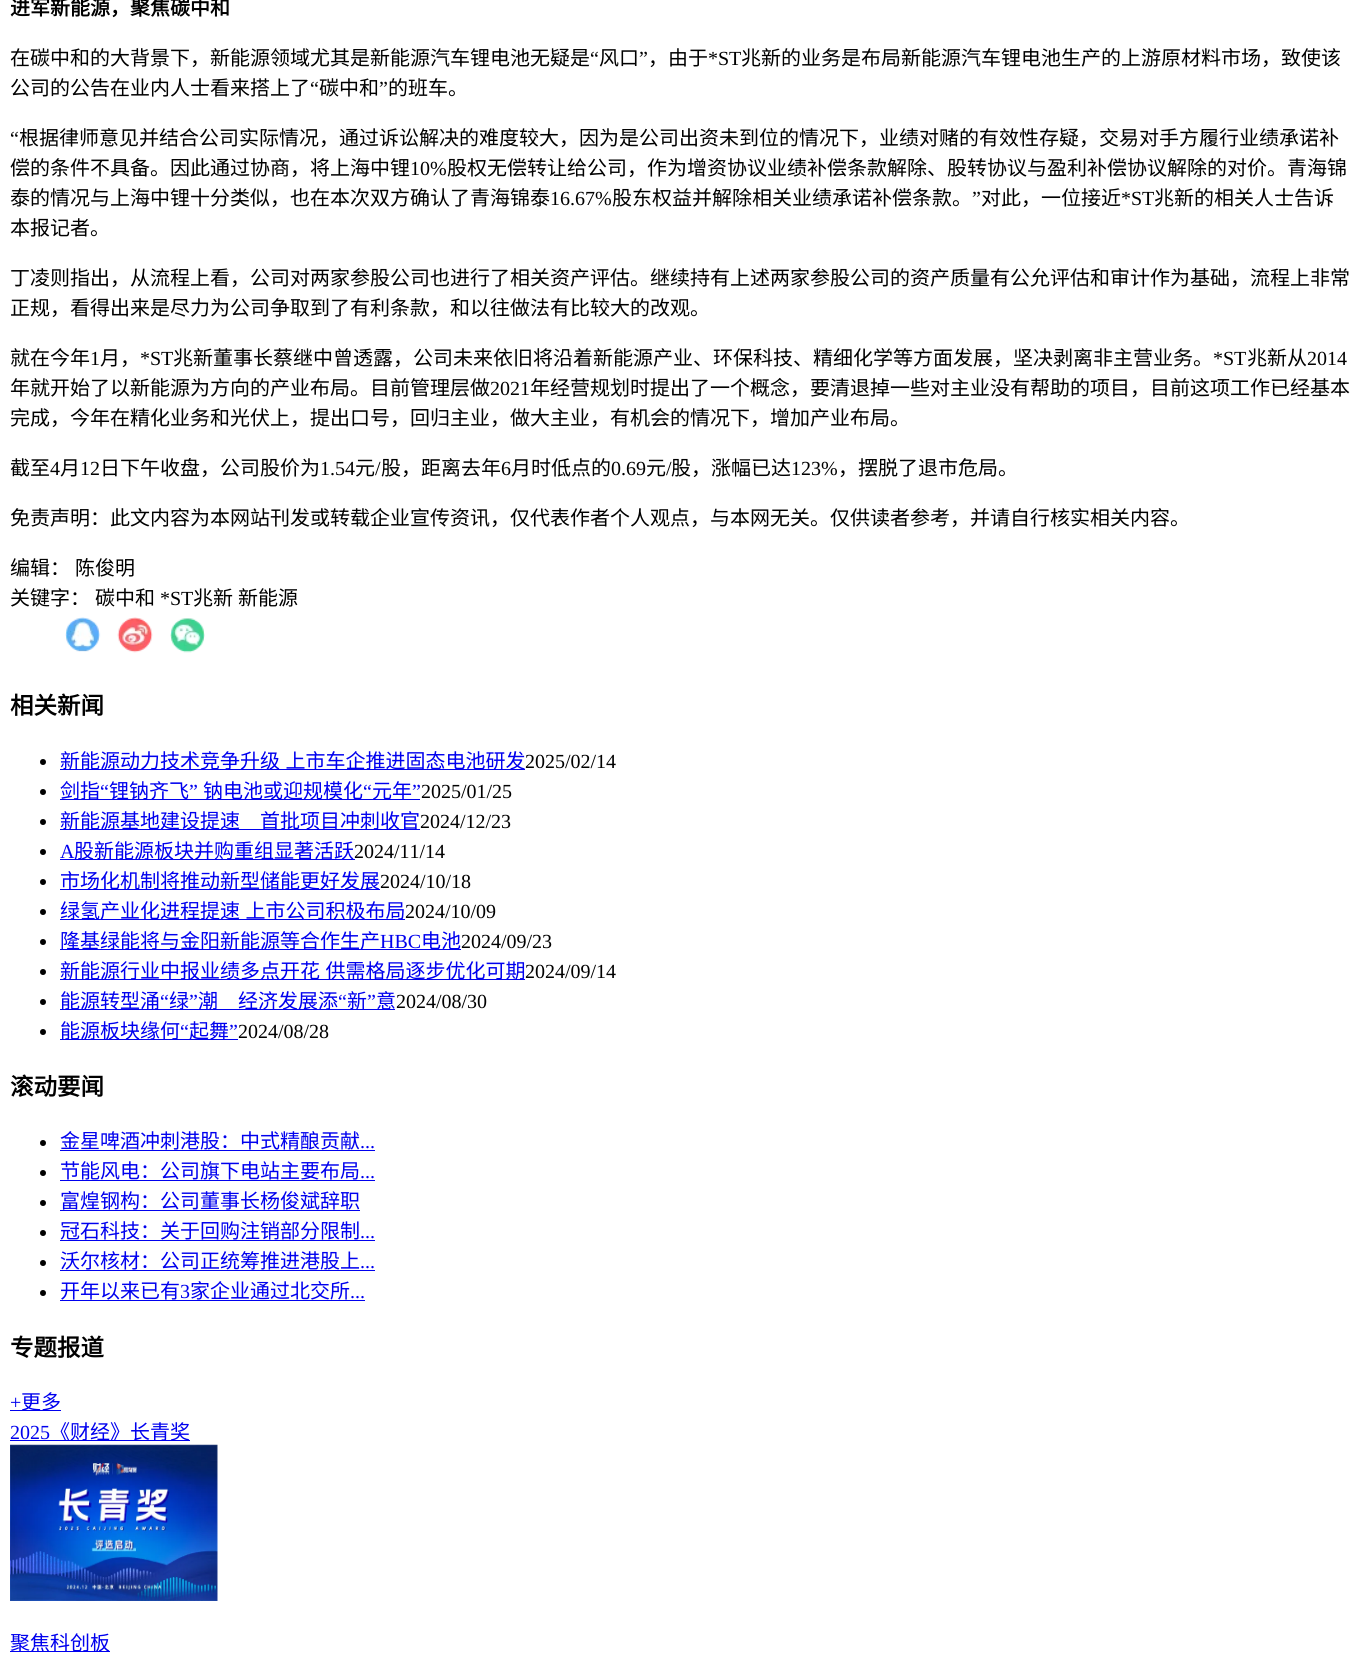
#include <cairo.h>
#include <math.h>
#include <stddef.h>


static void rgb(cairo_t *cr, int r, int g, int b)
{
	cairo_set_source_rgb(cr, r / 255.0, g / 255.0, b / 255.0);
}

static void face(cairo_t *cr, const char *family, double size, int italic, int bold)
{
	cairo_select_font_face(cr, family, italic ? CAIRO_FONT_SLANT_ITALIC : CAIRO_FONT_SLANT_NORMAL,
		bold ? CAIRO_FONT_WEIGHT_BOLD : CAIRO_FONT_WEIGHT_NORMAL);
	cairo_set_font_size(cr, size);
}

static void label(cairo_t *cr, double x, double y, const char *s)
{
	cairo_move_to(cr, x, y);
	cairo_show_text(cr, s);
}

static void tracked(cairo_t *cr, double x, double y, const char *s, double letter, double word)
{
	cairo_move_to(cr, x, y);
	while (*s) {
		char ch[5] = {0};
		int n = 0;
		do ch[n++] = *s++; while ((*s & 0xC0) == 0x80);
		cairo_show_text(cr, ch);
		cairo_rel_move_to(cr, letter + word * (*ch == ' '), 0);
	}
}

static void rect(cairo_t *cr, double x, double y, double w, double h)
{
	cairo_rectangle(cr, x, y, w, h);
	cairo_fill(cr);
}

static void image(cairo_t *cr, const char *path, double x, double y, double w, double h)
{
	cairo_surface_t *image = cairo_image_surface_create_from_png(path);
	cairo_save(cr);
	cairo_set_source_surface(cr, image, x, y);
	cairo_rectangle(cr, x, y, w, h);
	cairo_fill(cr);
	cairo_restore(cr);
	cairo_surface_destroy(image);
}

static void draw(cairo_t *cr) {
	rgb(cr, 255, 255, 255);
	cairo_paint(cr);
	face(cr, "Noto Sans CJK SC", 20, 0, 1);
	rgb(cr, 0, 0, 0);
	label(cr, 10, 15, "进军新能源，聚焦碳中和");
	face(cr, "Noto Sans CJK SC", 20, 0, 0);
	label(cr, 10, 65, "在碳中和的大背景下，新能源领域尤其是新能源汽车锂电池无疑是");
	face(cr, "Liberation Serif", 20, 0, 0);
	label(cr, 590, 65, "“");
	face(cr, "Noto Sans CJK SC", 20, 0, 0);
	label(cr, 599, 65, "风口");
	face(cr, "Liberation Serif", 20, 0, 0);
	label(cr, 639, 65, "”");
	face(cr, "Noto Sans CJK SC", 20, 0, 0);
	label(cr, 648, 65, "，由于");
	face(cr, "Liberation Serif", 20, 0, 0);
	label(cr, 708, 65, "*ST");
	face(cr, "Noto Sans CJK SC", 20, 0, 0);
	label(cr, 741, 65, "兆新的业务是布局新能源汽车锂电池生产的上游原材料市场，致使该");
	label(cr, 10, 95, "公司的公告在业内人士看来搭上了");
	face(cr, "Liberation Serif", 20, 0, 0);
	label(cr, 310, 95, "“");
	face(cr, "Noto Sans CJK SC", 20, 0, 0);
	label(cr, 319, 95, "碳中和");
	face(cr, "Liberation Serif", 20, 0, 0);
	label(cr, 379, 95, "”");
	face(cr, "Noto Sans CJK SC", 20, 0, 0);
	label(cr, 388, 95, "的班车。");
	face(cr, "Liberation Serif", 20, 0, 0);
	label(cr, 10, 145, "“");
	face(cr, "Noto Sans CJK SC", 20, 0, 0);
	label(cr, 19, 145, "根据律师意见并结合公司实际情况，通过诉讼解决的难度较大，因为是公司出资未到位的情况下，业绩对赌的有效性存疑，交易对手方履行业绩承诺补");
	label(cr, 10, 175, "偿的条件不具备。因此通过协商，将上海中锂");
	face(cr, "Liberation Serif", 20, 0, 0);
	label(cr, 410, 175, "10%");
	face(cr, "Noto Sans CJK SC", 20, 0, 0);
	label(cr, 447, 175, "股权无偿转让给公司，作为增资协议业绩补偿条款解除、股转协议与盈利补偿协议解除的对价。青海锦");
	label(cr, 10, 205, "泰的情况与上海中锂十分类似，也在本次双方确认了青海锦泰");
	face(cr, "Liberation Serif", 20, 0, 0);
	label(cr, 550, 205, "16.67%");
	face(cr, "Noto Sans CJK SC", 20, 0, 0);
	label(cr, 612, 205, "股东权益并解除相关业绩承诺补偿条款。");
	face(cr, "Liberation Serif", 20, 0, 0);
	label(cr, 972, 205, "”");
	face(cr, "Noto Sans CJK SC", 20, 0, 0);
	label(cr, 981, 205, "对此，一位接近");
	face(cr, "Liberation Serif", 20, 0, 0);
	label(cr, 1121, 205, "*ST");
	face(cr, "Noto Sans CJK SC", 20, 0, 0);
	label(cr, 1154, 205, "兆新的相关人士告诉");
	label(cr, 10, 235, "本报记者。");
	label(cr, 10, 285, "丁凌则指出，从流程上看，公司对两家参股公司也进行了相关资产评估。继续持有上述两家参股公司的资产质量有公允评估和审计作为基础，流程上非常");
	label(cr, 10, 315, "正规，看得出来是尽力为公司争取到了有利条款，和以往做法有比较大的改观。");
	label(cr, 10, 365, "就在今年");
	face(cr, "Liberation Serif", 20, 0, 0);
	label(cr, 90, 365, "1");
	face(cr, "Noto Sans CJK SC", 20, 0, 0);
	label(cr, 100, 365, "月，");
	face(cr, "Liberation Serif", 20, 0, 0);
	label(cr, 140, 365, "*ST");
	face(cr, "Noto Sans CJK SC", 20, 0, 0);
	label(cr, 173, 365, "兆新董事长蔡继中曾透露，公司未来依旧将沿着新能源产业、环保科技、精细化学等方面发展，坚决剥离非主营业务。");
	face(cr, "Liberation Serif", 20, 0, 0);
	label(cr, 1213, 365, "*ST");
	face(cr, "Noto Sans CJK SC", 20, 0, 0);
	label(cr, 1247, 365, "兆新从");
	face(cr, "Liberation Serif", 20, 0, 0);
	label(cr, 1307, 365, "2014");
	face(cr, "Noto Sans CJK SC", 20, 0, 0);
	label(cr, 10, 395, "年就开始了以新能源为方向的产业布局。目前管理层做");
	face(cr, "Liberation Serif", 20, 0, 0);
	label(cr, 490, 395, "2021");
	face(cr, "Noto Sans CJK SC", 20, 0, 0);
	label(cr, 530, 395, "年经营规划时提出了一个概念，要清退掉一些对主业没有帮助的项目，目前这项工作已经基本");
	label(cr, 10, 425, "完成，今年在精化业务和光伏上，提出口号，回归主业，做大主业，有机会的情况下，增加产业布局。");
	label(cr, 10, 475, "截至");
	face(cr, "Liberation Serif", 20, 0, 0);
	label(cr, 50, 475, "4");
	face(cr, "Noto Sans CJK SC", 20, 0, 0);
	label(cr, 60, 475, "月");
	face(cr, "Liberation Serif", 20, 0, 0);
	label(cr, 80, 475, "12");
	face(cr, "Noto Sans CJK SC", 20, 0, 0);
	label(cr, 100, 475, "日下午收盘，公司股价为");
	face(cr, "Liberation Serif", 20, 0, 0);
	label(cr, 320, 475, "1.54");
	face(cr, "Noto Sans CJK SC", 20, 0, 0);
	label(cr, 355, 475, "元");
	face(cr, "Liberation Serif", 20, 0, 0);
	label(cr, 375, 475, "/");
	face(cr, "Noto Sans CJK SC", 20, 0, 0);
	label(cr, 381, 475, "股，距离去年");
	face(cr, "Liberation Serif", 20, 0, 0);
	label(cr, 501, 475, "6");
	face(cr, "Noto Sans CJK SC", 20, 0, 0);
	label(cr, 511, 475, "月时低点的");
	face(cr, "Liberation Serif", 20, 0, 0);
	label(cr, 611, 475, "0.69");
	face(cr, "Noto Sans CJK SC", 20, 0, 0);
	label(cr, 646, 475, "元");
	face(cr, "Liberation Serif", 20, 0, 0);
	label(cr, 666, 475, "/");
	face(cr, "Noto Sans CJK SC", 20, 0, 0);
	label(cr, 671, 475, "股，涨幅已达");
	face(cr, "Liberation Serif", 20, 0, 0);
	label(cr, 791, 475, "123%");
	face(cr, "Noto Sans CJK SC", 20, 0, 0);
	label(cr, 838, 475, "，摆脱了退市危局。");
	label(cr, 10, 525, "免责声明：此文内容为本网站刊发或转载企业宣传资讯，仅代表作者个人观点，与本网无关。仅供读者参考，并请自行核实相关内容。");
	label(cr, 10, 575, "编辑：");
	label(cr, 75, 575, "陈俊明");
	label(cr, 10, 605, "关键字：");
	label(cr, 95, 605, "碳中和");
	face(cr, "Liberation Serif", 20, 0, 0);
	label(cr, 160, 605, "*ST");
	face(cr, "Noto Sans CJK SC", 20, 0, 0);
	label(cr, 193, 605, "兆新");
	label(cr, 238, 605, "新能源");
	image(cr, "image0.png", 65, 617, 36, 35);
	image(cr, "image1.png", 117, 617, 36, 36);
	image(cr, "image2.png", 170, 618, 35, 35);
	face(cr, "Noto Sans CJK SC", 23.5, 0, 1);
	label(cr, 10, 714, "相关新闻");
	cairo_new_path(cr);
	cairo_arc(cr, 43, 762, 3, 0, 2 * M_PI);
	cairo_fill(cr);
	rgb(cr, 0, 0, 238);
	rect(cr, 60, 769, 465, 1);
	face(cr, "Noto Sans CJK SC", 20, 0, 0);
	tracked(cr, 60, 768, "新能源动力技术竞争升级 上市车企推进固态电池研发", 0, 1);
	face(cr, "Liberation Serif", 20, 0, 0);
	rgb(cr, 0, 0, 0);
	label(cr, 525, 768, "2025/02/14");
	cairo_new_path(cr);
	cairo_arc(cr, 43, 792, 3, 0, 2 * M_PI);
	cairo_fill(cr);
	rgb(cr, 0, 0, 238);
	rect(cr, 60, 799, 360, 1);
	face(cr, "Noto Sans CJK SC", 20, 0, 0);
	label(cr, 60, 798, "剑指");
	face(cr, "Liberation Serif", 20, 0, 0);
	label(cr, 100, 798, "“");
	face(cr, "Noto Sans CJK SC", 20, 0, 0);
	label(cr, 109, 798, "锂钠齐飞");
	face(cr, "Liberation Serif", 20, 0, 0);
	label(cr, 189, 798, "”");
	face(cr, "Noto Sans CJK SC", 20, 0, 0);
	label(cr, 203, 798, "钠电池或迎规模化");
	face(cr, "Liberation Serif", 20, 0, 0);
	label(cr, 363, 798, "“");
	face(cr, "Noto Sans CJK SC", 20, 0, 0);
	label(cr, 372, 798, "元年");
	face(cr, "Liberation Serif", 20, 0, 0);
	label(cr, 412, 798, "”");
	rgb(cr, 0, 0, 0);
	label(cr, 421, 798, "2025/01/25");
	cairo_new_path(cr);
	cairo_arc(cr, 43, 822, 3, 0, 2 * M_PI);
	cairo_fill(cr);
	rgb(cr, 0, 0, 238);
	rect(cr, 60, 829, 360, 1);
	face(cr, "Noto Sans CJK SC", 20, 0, 0);
	label(cr, 60, 828, "新能源基地建设提速　首批项目冲刺收官");
	face(cr, "Liberation Serif", 20, 0, 0);
	rgb(cr, 0, 0, 0);
	label(cr, 420, 828, "2024/12/23");
	cairo_new_path(cr);
	cairo_arc(cr, 43, 852, 3, 0, 2 * M_PI);
	cairo_fill(cr);
	rgb(cr, 0, 0, 238);
	label(cr, 60, 858, "A");
	rect(cr, 60, 859, 295, 1);
	face(cr, "Noto Sans CJK SC", 20, 0, 0);
	label(cr, 74, 858, "股新能源板块并购重组显著活跃");
	face(cr, "Liberation Serif", 20, 0, 0);
	rgb(cr, 0, 0, 0);
	label(cr, 354, 858, "2024/11/14");
	cairo_new_path(cr);
	cairo_arc(cr, 43, 882, 3, 0, 2 * M_PI);
	cairo_fill(cr);
	rgb(cr, 0, 0, 238);
	rect(cr, 60, 889, 320, 1);
	face(cr, "Noto Sans CJK SC", 20, 0, 0);
	label(cr, 60, 888, "市场化机制将推动新型储能更好发展");
	face(cr, "Liberation Serif", 20, 0, 0);
	rgb(cr, 0, 0, 0);
	label(cr, 380, 888, "2024/10/18");
	cairo_new_path(cr);
	cairo_arc(cr, 43, 912, 3, 0, 2 * M_PI);
	cairo_fill(cr);
	rgb(cr, 0, 0, 238);
	rect(cr, 60, 919, 345, 1);
	face(cr, "Noto Sans CJK SC", 20, 0, 0);
	tracked(cr, 60, 918, "绿氢产业化进程提速 上市公司积极布局", 0, 1);
	face(cr, "Liberation Serif", 20, 0, 0);
	rgb(cr, 0, 0, 0);
	label(cr, 405, 918, "2024/10/09");
	cairo_new_path(cr);
	cairo_arc(cr, 43, 942, 3, 0, 2 * M_PI);
	cairo_fill(cr);
	rgb(cr, 0, 0, 238);
	rect(cr, 60, 949, 401, 1);
	face(cr, "Noto Sans CJK SC", 20, 0, 0);
	label(cr, 60, 948, "隆基绿能将与金阳新能源等合作生产");
	face(cr, "Liberation Serif", 20, 0, 0);
	label(cr, 380, 948, "HBC");
	face(cr, "Noto Sans CJK SC", 20, 0, 0);
	label(cr, 421, 948, "电池");
	face(cr, "Liberation Serif", 20, 0, 0);
	rgb(cr, 0, 0, 0);
	label(cr, 461, 948, "2024/09/23");
	cairo_new_path(cr);
	cairo_arc(cr, 43, 972, 3, 0, 2 * M_PI);
	cairo_fill(cr);
	rgb(cr, 0, 0, 238);
	rect(cr, 60, 979, 465, 1);
	face(cr, "Noto Sans CJK SC", 20, 0, 0);
	tracked(cr, 60, 978, "新能源行业中报业绩多点开花 供需格局逐步优化可期", 0, 1);
	face(cr, "Liberation Serif", 20, 0, 0);
	rgb(cr, 0, 0, 0);
	label(cr, 525, 978, "2024/09/14");
	cairo_new_path(cr);
	cairo_arc(cr, 43, 1002, 3, 0, 2 * M_PI);
	cairo_fill(cr);
	rgb(cr, 0, 0, 238);
	rect(cr, 60, 1009, 335, 1);
	face(cr, "Noto Sans CJK SC", 20, 0, 0);
	label(cr, 60, 1008, "能源转型涌");
	face(cr, "Liberation Serif", 20, 0, 0);
	label(cr, 160, 1008, "“");
	face(cr, "Noto Sans CJK SC", 20, 0, 0);
	label(cr, 169, 1008, "绿");
	face(cr, "Liberation Serif", 20, 0, 0);
	label(cr, 189, 1008, "”");
	face(cr, "Noto Sans CJK SC", 20, 0, 0);
	label(cr, 198, 1008, "潮　经济发展添");
	face(cr, "Liberation Serif", 20, 0, 0);
	label(cr, 338, 1008, "“");
	face(cr, "Noto Sans CJK SC", 20, 0, 0);
	label(cr, 347, 1008, "新");
	face(cr, "Liberation Serif", 20, 0, 0);
	label(cr, 367, 1008, "”");
	face(cr, "Noto Sans CJK SC", 20, 0, 0);
	label(cr, 376, 1008, "意");
	face(cr, "Liberation Serif", 20, 0, 0);
	rgb(cr, 0, 0, 0);
	label(cr, 396, 1008, "2024/08/30");
	cairo_new_path(cr);
	cairo_arc(cr, 43, 1032, 3, 0, 2 * M_PI);
	cairo_fill(cr);
	rgb(cr, 0, 0, 238);
	rect(cr, 60, 1039, 178, 1);
	face(cr, "Noto Sans CJK SC", 20, 0, 0);
	label(cr, 60, 1038, "能源板块缘何");
	face(cr, "Liberation Serif", 20, 0, 0);
	label(cr, 180, 1038, "“");
	face(cr, "Noto Sans CJK SC", 20, 0, 0);
	label(cr, 189, 1038, "起舞");
	face(cr, "Liberation Serif", 20, 0, 0);
	label(cr, 229, 1038, "”");
	rgb(cr, 0, 0, 0);
	label(cr, 238, 1038, "2024/08/28");
	face(cr, "Noto Sans CJK SC", 23.5, 0, 1);
	label(cr, 10, 1095, "滚动要闻");
	cairo_new_path(cr);
	cairo_arc(cr, 43, 1143, 3, 0, 2 * M_PI);
	cairo_fill(cr);
	face(cr, "Noto Sans CJK SC", 20, 0, 0);
	rgb(cr, 0, 0, 238);
	label(cr, 60, 1148, "金星啤酒冲刺港股：中式精酿贡献");
	face(cr, "Liberation Serif", 20, 0, 0);
	label(cr, 360, 1148, "...");
	rect(cr, 60, 1150, 315, 1);
	rgb(cr, 0, 0, 0);
	cairo_new_path(cr);
	cairo_arc(cr, 43, 1173, 3, 0, 2 * M_PI);
	cairo_fill(cr);
	face(cr, "Noto Sans CJK SC", 20, 0, 0);
	rgb(cr, 0, 0, 238);
	label(cr, 60, 1178, "节能风电：公司旗下电站主要布局");
	face(cr, "Liberation Serif", 20, 0, 0);
	label(cr, 360, 1178, "...");
	rect(cr, 60, 1180, 315, 1);
	rgb(cr, 0, 0, 0);
	cairo_new_path(cr);
	cairo_arc(cr, 43, 1203, 3, 0, 2 * M_PI);
	cairo_fill(cr);
	face(cr, "Noto Sans CJK SC", 20, 0, 0);
	rgb(cr, 0, 0, 238);
	label(cr, 60, 1208, "富煌钢构：公司董事长杨俊斌辞职");
	rect(cr, 60, 1210, 300, 1);
	rgb(cr, 0, 0, 0);
	cairo_new_path(cr);
	cairo_arc(cr, 43, 1233, 3, 0, 2 * M_PI);
	cairo_fill(cr);
	rgb(cr, 0, 0, 238);
	label(cr, 60, 1238, "冠石科技：关于回购注销部分限制");
	face(cr, "Liberation Serif", 20, 0, 0);
	label(cr, 360, 1238, "...");
	rect(cr, 60, 1240, 315, 1);
	rgb(cr, 0, 0, 0);
	cairo_new_path(cr);
	cairo_arc(cr, 43, 1263, 3, 0, 2 * M_PI);
	cairo_fill(cr);
	face(cr, "Noto Sans CJK SC", 20, 0, 0);
	rgb(cr, 0, 0, 238);
	label(cr, 60, 1268, "沃尔核材：公司正统筹推进港股上");
	face(cr, "Liberation Serif", 20, 0, 0);
	label(cr, 360, 1268, "...");
	rect(cr, 60, 1270, 315, 1);
	rgb(cr, 0, 0, 0);
	cairo_new_path(cr);
	cairo_arc(cr, 43, 1293, 3, 0, 2 * M_PI);
	cairo_fill(cr);
	face(cr, "Noto Sans CJK SC", 20, 0, 0);
	rgb(cr, 0, 0, 238);
	label(cr, 60, 1298, "开年以来已有");
	face(cr, "Liberation Serif", 20, 0, 0);
	label(cr, 180, 1298, "3");
	face(cr, "Noto Sans CJK SC", 20, 0, 0);
	label(cr, 190, 1298, "家企业通过北交所");
	face(cr, "Liberation Serif", 20, 0, 0);
	label(cr, 350, 1298, "...");
	rect(cr, 60, 1300, 305, 1);
	face(cr, "Noto Sans CJK SC", 23.5, 0, 1);
	rgb(cr, 0, 0, 0);
	label(cr, 10, 1356, "专题报道");
	face(cr, "Liberation Serif", 20, 0, 0);
	rgb(cr, 0, 0, 238);
	label(cr, 10, 1409, "+");
	rect(cr, 10, 1410, 51, 1);
	face(cr, "Noto Sans CJK SC", 20, 0, 0);
	label(cr, 21, 1409, "更多");
	face(cr, "Liberation Serif", 20, 0, 0);
	label(cr, 10, 1439, "2025");
	rect(cr, 10, 1440, 180, 1);
	face(cr, "Noto Sans CJK SC", 20, 0, 0);
	label(cr, 50, 1439, "《财经》长青奖");
	image(cr, "image3.png", 10, 1444, 208, 157);
	rect(cr, 10, 1651, 100, 1);
	label(cr, 10, 1650, "聚焦科创板");
}

int main(void) {
	cairo_surface_t *surface = cairo_image_surface_create(CAIRO_FORMAT_RGB24, 1363, 1665);
	cairo_t *cr = cairo_create(surface);
	cairo_font_options_t *options = cairo_font_options_create();
	cairo_font_options_set_hint_metrics(options, CAIRO_HINT_METRICS_OFF);
	cairo_font_options_set_hint_style(options, CAIRO_HINT_STYLE_NONE);
	cairo_set_font_options(cr, options);
	cairo_set_miter_limit(cr, 4);
	draw(cr);
	cairo_surface_write_to_png(surface, "render.png");
	cairo_font_options_destroy(options);
	cairo_destroy(cr);
	cairo_surface_destroy(surface);
	return 0;
}
